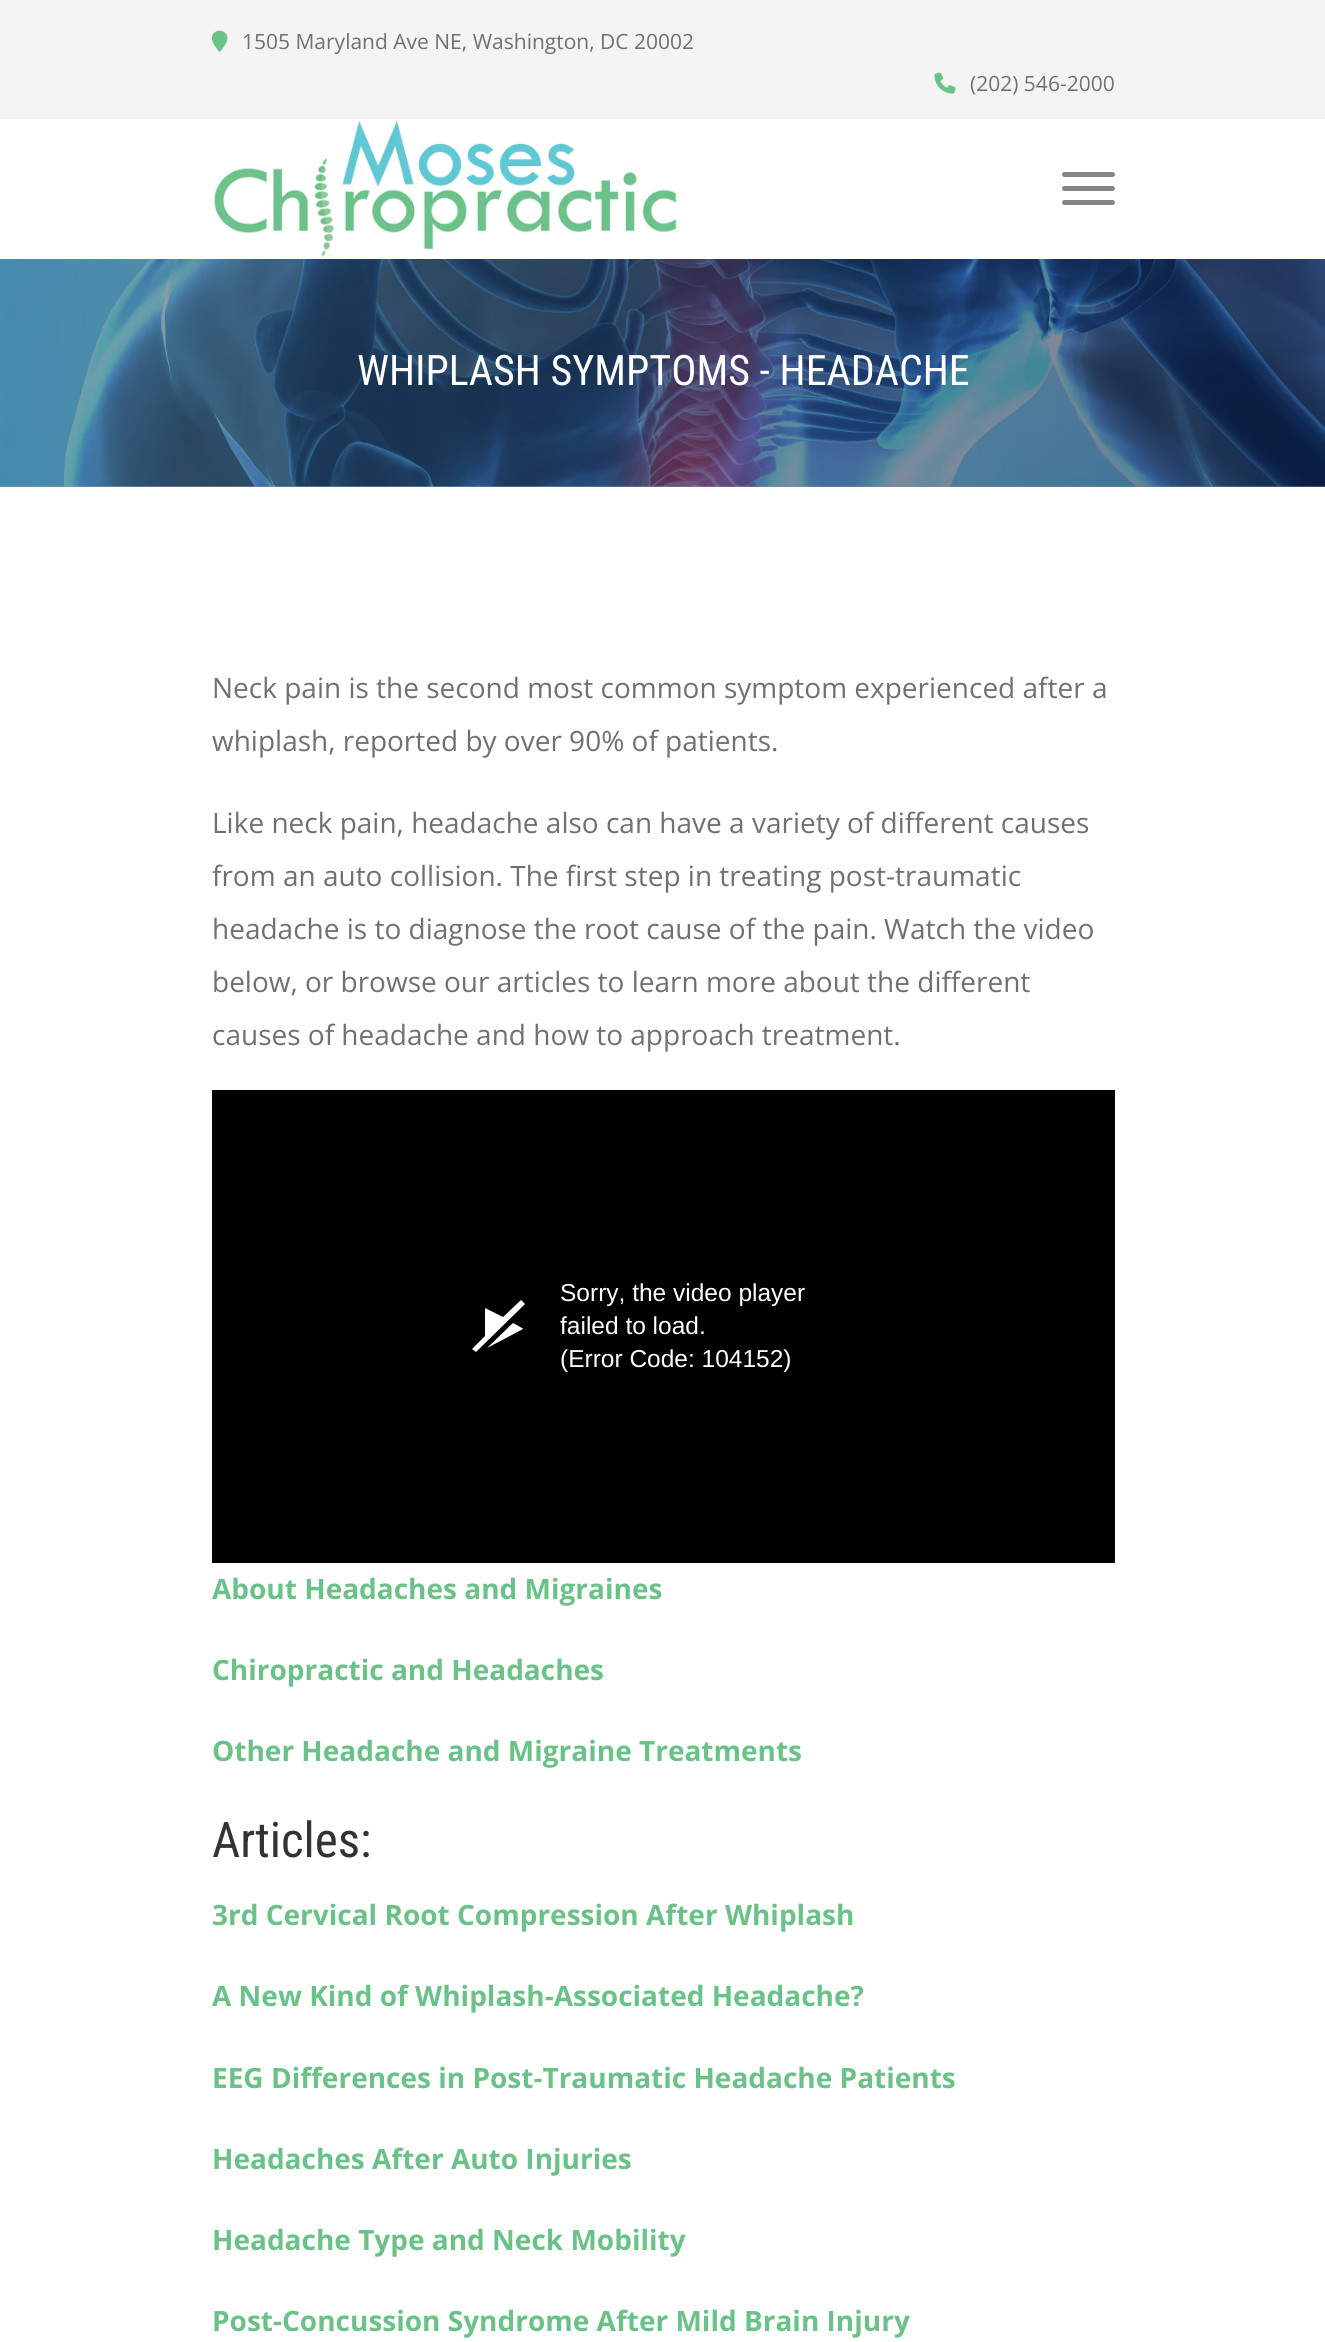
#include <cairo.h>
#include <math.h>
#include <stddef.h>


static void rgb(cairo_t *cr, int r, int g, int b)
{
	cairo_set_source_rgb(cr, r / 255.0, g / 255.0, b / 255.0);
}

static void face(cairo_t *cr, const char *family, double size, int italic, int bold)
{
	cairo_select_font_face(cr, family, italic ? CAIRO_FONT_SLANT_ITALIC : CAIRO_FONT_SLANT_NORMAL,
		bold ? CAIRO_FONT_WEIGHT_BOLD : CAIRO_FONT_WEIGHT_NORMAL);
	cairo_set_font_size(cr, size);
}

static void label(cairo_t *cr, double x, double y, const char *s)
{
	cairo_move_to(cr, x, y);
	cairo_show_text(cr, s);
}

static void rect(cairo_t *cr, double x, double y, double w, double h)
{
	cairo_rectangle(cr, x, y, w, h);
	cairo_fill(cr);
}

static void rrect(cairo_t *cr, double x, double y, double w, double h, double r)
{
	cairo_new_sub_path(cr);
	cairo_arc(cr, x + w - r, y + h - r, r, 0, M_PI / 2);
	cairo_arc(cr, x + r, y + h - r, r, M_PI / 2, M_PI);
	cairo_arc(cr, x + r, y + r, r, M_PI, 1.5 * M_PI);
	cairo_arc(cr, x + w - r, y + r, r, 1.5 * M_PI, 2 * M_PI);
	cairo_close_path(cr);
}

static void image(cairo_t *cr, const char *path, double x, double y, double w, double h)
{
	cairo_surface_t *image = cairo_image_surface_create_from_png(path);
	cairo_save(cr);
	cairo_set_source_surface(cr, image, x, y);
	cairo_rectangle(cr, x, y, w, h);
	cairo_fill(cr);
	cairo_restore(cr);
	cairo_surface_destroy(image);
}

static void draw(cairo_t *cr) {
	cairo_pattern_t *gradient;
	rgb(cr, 255, 255, 255);
	cairo_paint(cr);
	rgb(cr, 244, 244, 244);
	rect(cr, 0, 0, 1325, 119);
	image(cr, "image0.png", 211, 30, 17, 22);
	face(cr, "Open Sans", 21, 0, 0);
	rgb(cr, 112, 112, 112);
	label(cr, 242, 49, "1505 Maryland Ave NE, Washington, DC 20002");
	image(cr, "image1.png", 934, 72, 22, 22);
	label(cr, 970, 91, "(202) 546-2000");
	image(cr, "image2.png", 213, 120, 464, 138);
	rgb(cr, 133, 133, 133);
	rrect(cr, 1062, 172, 53, 5, 2.5);
	cairo_fill(cr);
	rrect(cr, 1062, 186, 53, 5, 2.5);
	cairo_fill(cr);
	rrect(cr, 1062, 200, 53, 5, 2.5);
	cairo_fill(cr);
	image(cr, "image3.png", 0, 259, 1325, 228);
	gradient = cairo_pattern_create_linear(0, 373, 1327, 373);
	cairo_pattern_add_color_stop_rgba(gradient, 0, 0.173, 0.271, 0.365, 0.5);
	cairo_pattern_add_color_stop_rgba(gradient, 1, 0, 0.004, 0.173, 0.5);
	cairo_set_source(cr, gradient);
	cairo_pattern_destroy(gradient);
	rect(cr, 0, 259, 1325, 228);
	face(cr, "Roboto Condensed", 42, 0, 0);
	rgb(cr, 255, 255, 255);
	label(cr, 357, 385, "WHIPLASH SYMPTOMS - HEADACHE");
	face(cr, "Open Sans", 28, 0, 0);
	rgb(cr, 112, 112, 112);
	label(cr, 212, 698, "Neck pain is the second most common symptom experienced after a");
	label(cr, 212, 751, "whiplash, reported by over 90% of patients.");
	label(cr, 212, 833, "Like neck pain, headache also can have a variety of different causes");
	label(cr, 212, 886, "from an auto collision. The first step in treating post-traumatic");
	label(cr, 212, 939, "headache is to diagnose the root cause of the pain. Watch the video");
	label(cr, 212, 992, "below, or browse our articles to learn more about the different");
	label(cr, 212, 1045, "causes of headache and how to approach treatment.");
	rgb(cr, 0, 0, 0);
	rect(cr, 212, 1090, 903, 473);
	rgb(cr, 255, 255, 255);
	cairo_new_path(cr);
	cairo_move_to(cr, 523, 1329);
	cairo_line_to(cr, 487, 1348);
	cairo_line_to(cr, 513, 1323);
	cairo_curve_to(cr, 522, 1328, 524, 1329, 523, 1329);
	cairo_close_path(cr);
	cairo_move_to(cr, 521, 1300);
	cairo_line_to(cr, 503, 1317);
	cairo_line_to(cr, 485, 1308);
	cairo_line_to(cr, 485, 1336);
	cairo_line_to(cr, 472, 1349);
	cairo_line_to(cr, 476, 1352);
	cairo_line_to(cr, 525, 1304);
	cairo_close_path(cr);
	cairo_fill(cr);
	face(cr, "Liberation Sans", 24.5, 0, 0);
	label(cr, 560, 1301, "Sorry, the video player");
	label(cr, 560, 1334, "failed to load.");
	label(cr, 560, 1367, "(Error Code: 104152)");
	face(cr, "Open Sans", 28, 0, 1);
	rgb(cr, 107, 194, 137);
	label(cr, 212, 1599, "About Headaches and Migraines");
	label(cr, 212, 1680, "Chiropractic and Headaches");
	label(cr, 212, 1761, "Other Headache and Migraine Treatments");
	face(cr, "Roboto Condensed", 49, 0, 0);
	rgb(cr, 51, 51, 51);
	label(cr, 212, 1857, "Articles:");
	face(cr, "Open Sans", 28, 0, 1);
	rgb(cr, 107, 194, 137);
	label(cr, 212, 1925, "3rd Cervical Root Compression After Whiplash");
	label(cr, 212, 2006, "A New Kind of Whiplash-Associated Headache?");
	label(cr, 212, 2088, "EEG Differences in Post-Traumatic Headache Patients");
	label(cr, 212, 2169, "Headaches After Auto Injuries");
	label(cr, 212, 2250, "Headache Type and Neck Mobility");
	label(cr, 212, 2331, "Post-Concussion Syndrome After Mild Brain Injury");
}

int main(void) {
	cairo_surface_t *surface = cairo_image_surface_create(CAIRO_FORMAT_RGB24, 1325, 2342);
	cairo_t *cr = cairo_create(surface);
	cairo_font_options_t *options = cairo_font_options_create();
	cairo_font_options_set_hint_metrics(options, CAIRO_HINT_METRICS_OFF);
	cairo_font_options_set_hint_style(options, CAIRO_HINT_STYLE_NONE);
	cairo_set_font_options(cr, options);
	cairo_set_miter_limit(cr, 4);
	draw(cr);
	cairo_surface_write_to_png(surface, "render.png");
	cairo_font_options_destroy(options);
	cairo_destroy(cr);
	cairo_surface_destroy(surface);
	return 0;
}
